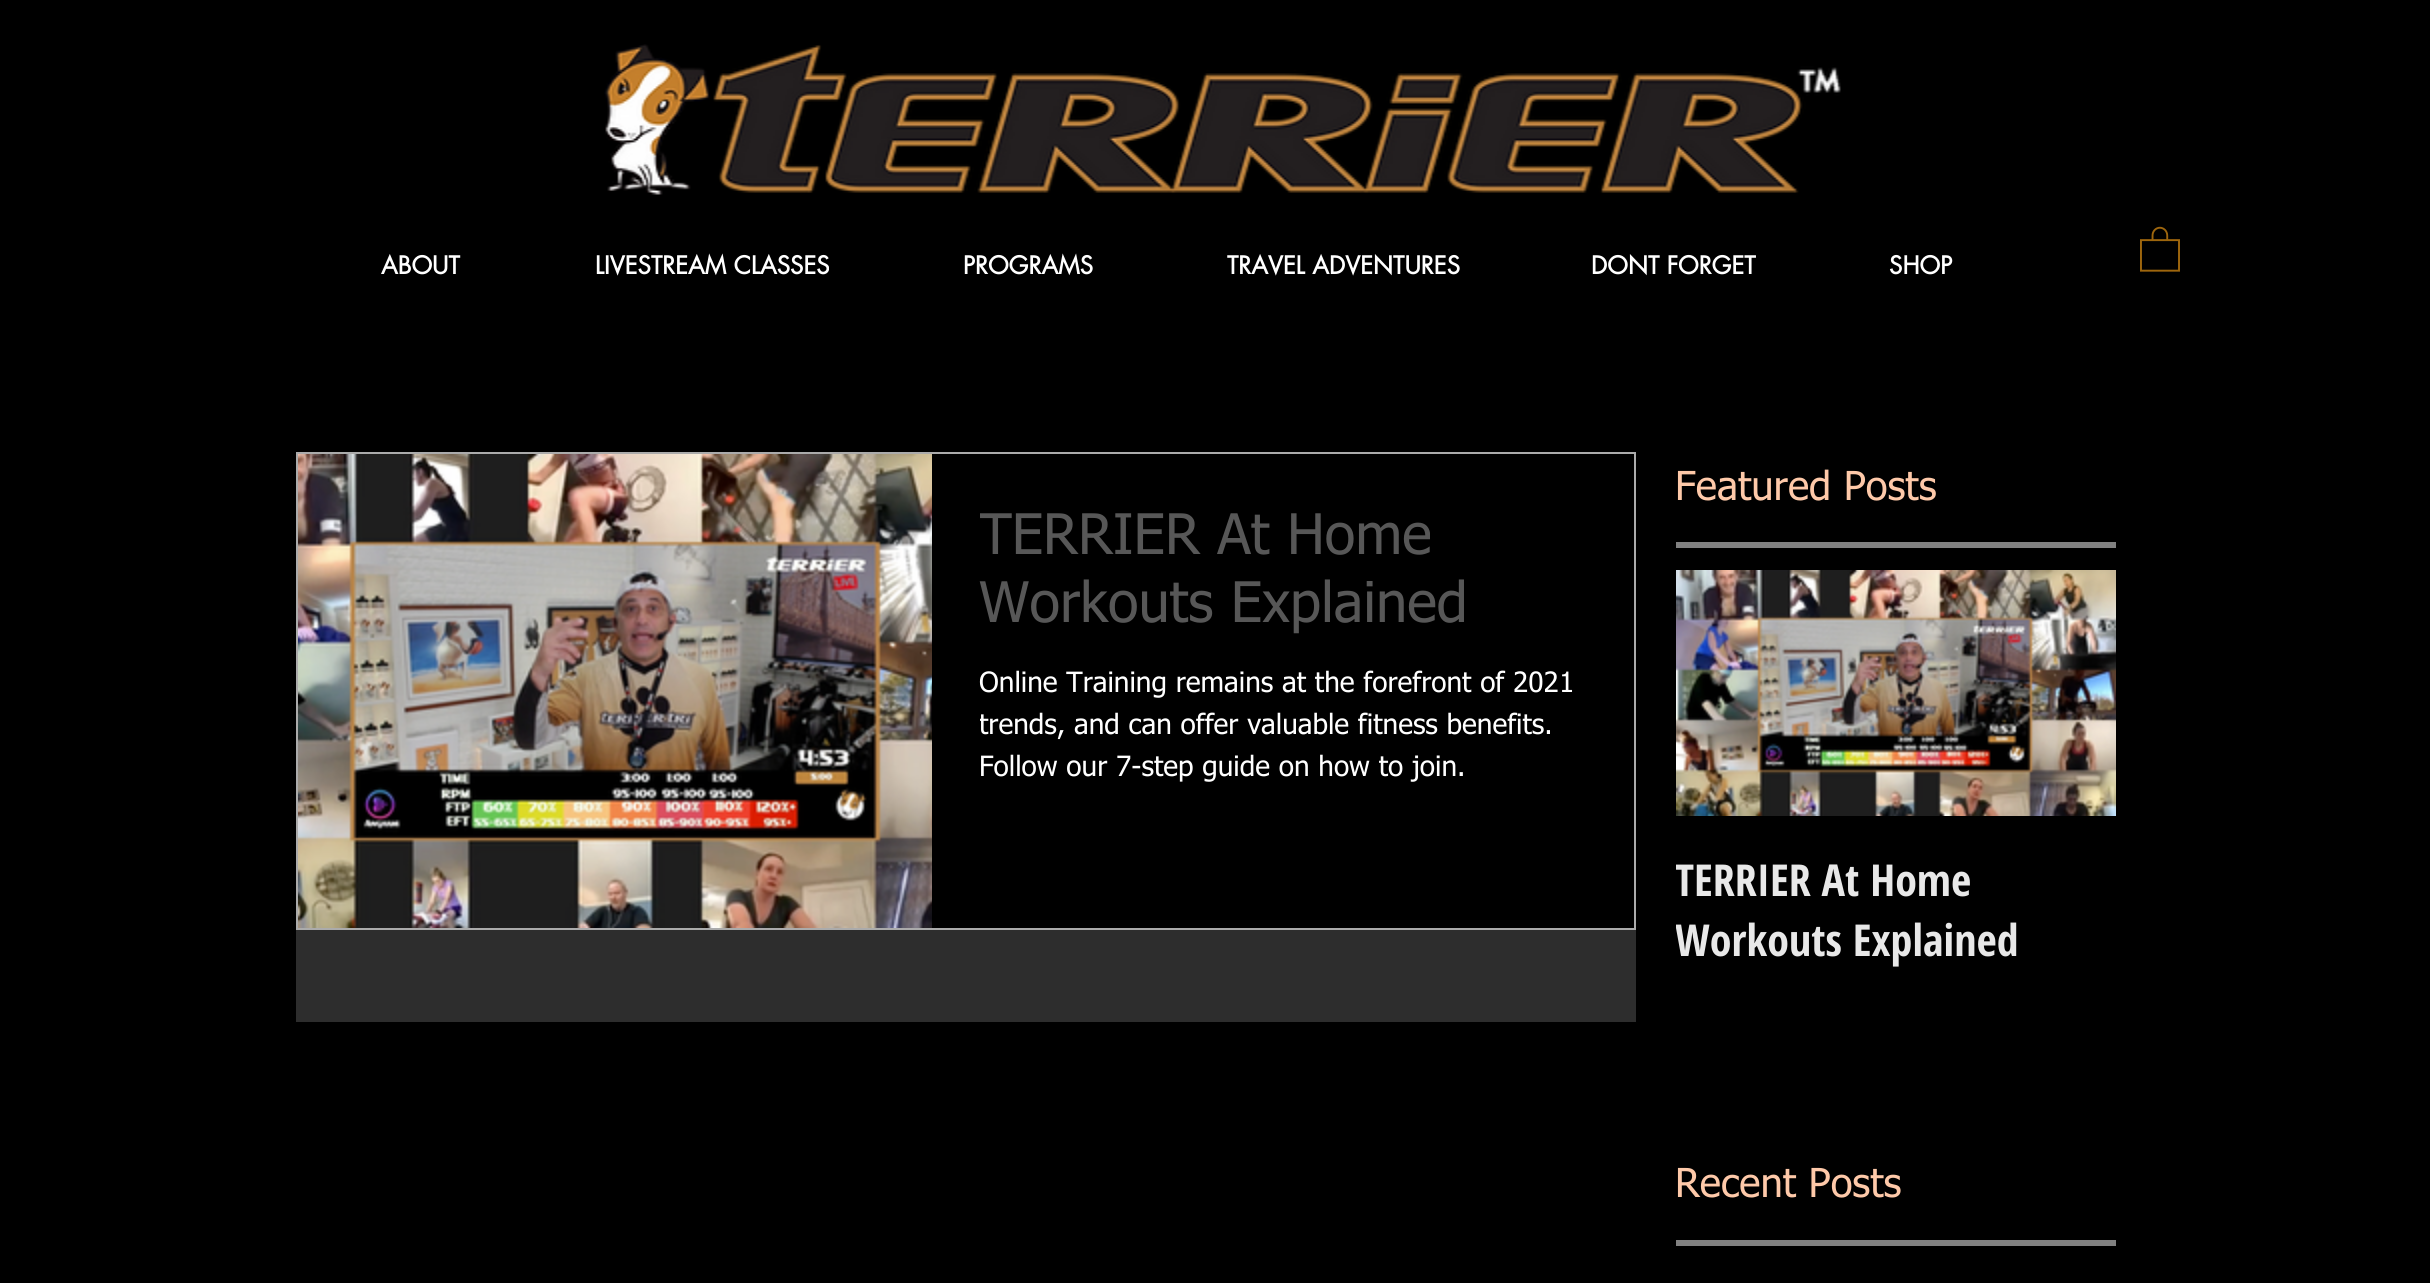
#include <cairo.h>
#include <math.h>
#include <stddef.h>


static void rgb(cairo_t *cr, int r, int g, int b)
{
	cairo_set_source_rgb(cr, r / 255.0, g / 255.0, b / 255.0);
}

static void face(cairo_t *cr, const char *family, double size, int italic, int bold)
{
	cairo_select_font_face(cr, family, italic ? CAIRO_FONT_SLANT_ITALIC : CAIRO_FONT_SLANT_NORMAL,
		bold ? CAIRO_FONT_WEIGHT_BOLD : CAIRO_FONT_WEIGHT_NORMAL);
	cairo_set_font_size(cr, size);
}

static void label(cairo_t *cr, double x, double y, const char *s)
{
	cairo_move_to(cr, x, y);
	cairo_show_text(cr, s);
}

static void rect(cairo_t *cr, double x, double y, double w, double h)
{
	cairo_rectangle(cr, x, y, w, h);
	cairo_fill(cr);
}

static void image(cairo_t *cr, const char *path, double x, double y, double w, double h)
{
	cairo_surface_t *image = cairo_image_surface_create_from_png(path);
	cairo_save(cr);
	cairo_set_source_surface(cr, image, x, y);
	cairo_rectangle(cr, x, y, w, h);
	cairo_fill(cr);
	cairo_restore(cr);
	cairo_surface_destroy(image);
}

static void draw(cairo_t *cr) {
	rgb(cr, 0, 0, 0);
	cairo_paint(cr);
	image(cr, "image0.png", 604, 44, 1237, 151);
	face(cr, "futura", 24, 0, 1);
	rgb(cr, 255, 255, 255);
	label(cr, 381, 274, "ABOUT");
	label(cr, 595, 274, "LIVESTREAM CLASSES");
	label(cr, 963, 274, "PROGRAMS");
	label(cr, 1227, 274, "TRAVEL ADVENTURES");
	label(cr, 1591, 274, "DONT FORGET");
	label(cr, 1889, 274, "SHOP");
	image(cr, "image1.png", 2140, 226, 40, 46);
	face(cr, "tahoma", 40, 0, 0);
	rgb(cr, 254, 201, 169);
	label(cr, 1675, 500, "Featured Posts");
	rgb(cr, 45, 45, 45);
	rect(cr, 296, 930, 1340, 92);
	cairo_rectangle(cr, 297, 453, 1338, 476);
	rgb(cr, 171, 171, 171);
	cairo_stroke(cr);
	image(cr, "image2.png", 298, 454, 634, 474);
	cairo_save(cr);
	cairo_rectangle(cr, 980, 504, 606, 136);
	cairo_clip(cr);
	face(cr, "tahoma", 56, 0, 0);
	rgb(cr, 87, 87, 87);
	label(cr, 979, 554, "TERRIER At Home");
	cairo_restore(cr);
	face(cr, "tahoma", 56, 0, 0);
	rgb(cr, 87, 87, 87);
	label(cr, 979, 622, "Workouts Explained");
	face(cr, "tahoma", 28, 0, 0);
	rgb(cr, 255, 255, 255);
	label(cr, 979, 692, "Online Training remains at the forefront of 2021");
	cairo_save(cr);
	cairo_rectangle(cr, 980, 664, 606, 126);
	cairo_clip(cr);
	label(cr, 979, 734, "trends, and can offer valuable fitness benefits.");
	cairo_restore(cr);
	label(cr, 979, 776, "Follow our 7-step guide on how to join.");
	rgb(cr, 129, 129, 129);
	rect(cr, 1676, 542, 440, 6);
	image(cr, "image3.png", 1676, 570, 440, 246);
	cairo_save(cr);
	cairo_rectangle(cr, 1676, 848, 440, 120);
	cairo_clip(cr);
	face(cr, "Open Sans Condensed", 44, 0, 1);
	rgb(cr, 232, 232, 232);
	label(cr, 1675, 896, "TERRIER At Home");
	label(cr, 1675, 956, "Workouts Explained");
	cairo_restore(cr);
	face(cr, "tahoma", 40, 0, 0);
	rgb(cr, 254, 201, 169);
	label(cr, 1675, 1197, "Recent Posts");
	rgb(cr, 129, 129, 129);
	rect(cr, 1676, 1240, 440, 6);
}

int main(void) {
	cairo_surface_t *surface = cairo_image_surface_create(CAIRO_FORMAT_RGB24, 2430, 1283);
	cairo_t *cr = cairo_create(surface);
	cairo_font_options_t *options = cairo_font_options_create();
	cairo_font_options_set_hint_metrics(options, CAIRO_HINT_METRICS_OFF);
	cairo_font_options_set_hint_style(options, CAIRO_HINT_STYLE_NONE);
	cairo_set_font_options(cr, options);
	cairo_set_miter_limit(cr, 4);
	draw(cr);
	cairo_surface_write_to_png(surface, "render.png");
	cairo_font_options_destroy(options);
	cairo_destroy(cr);
	cairo_surface_destroy(surface);
	return 0;
}
